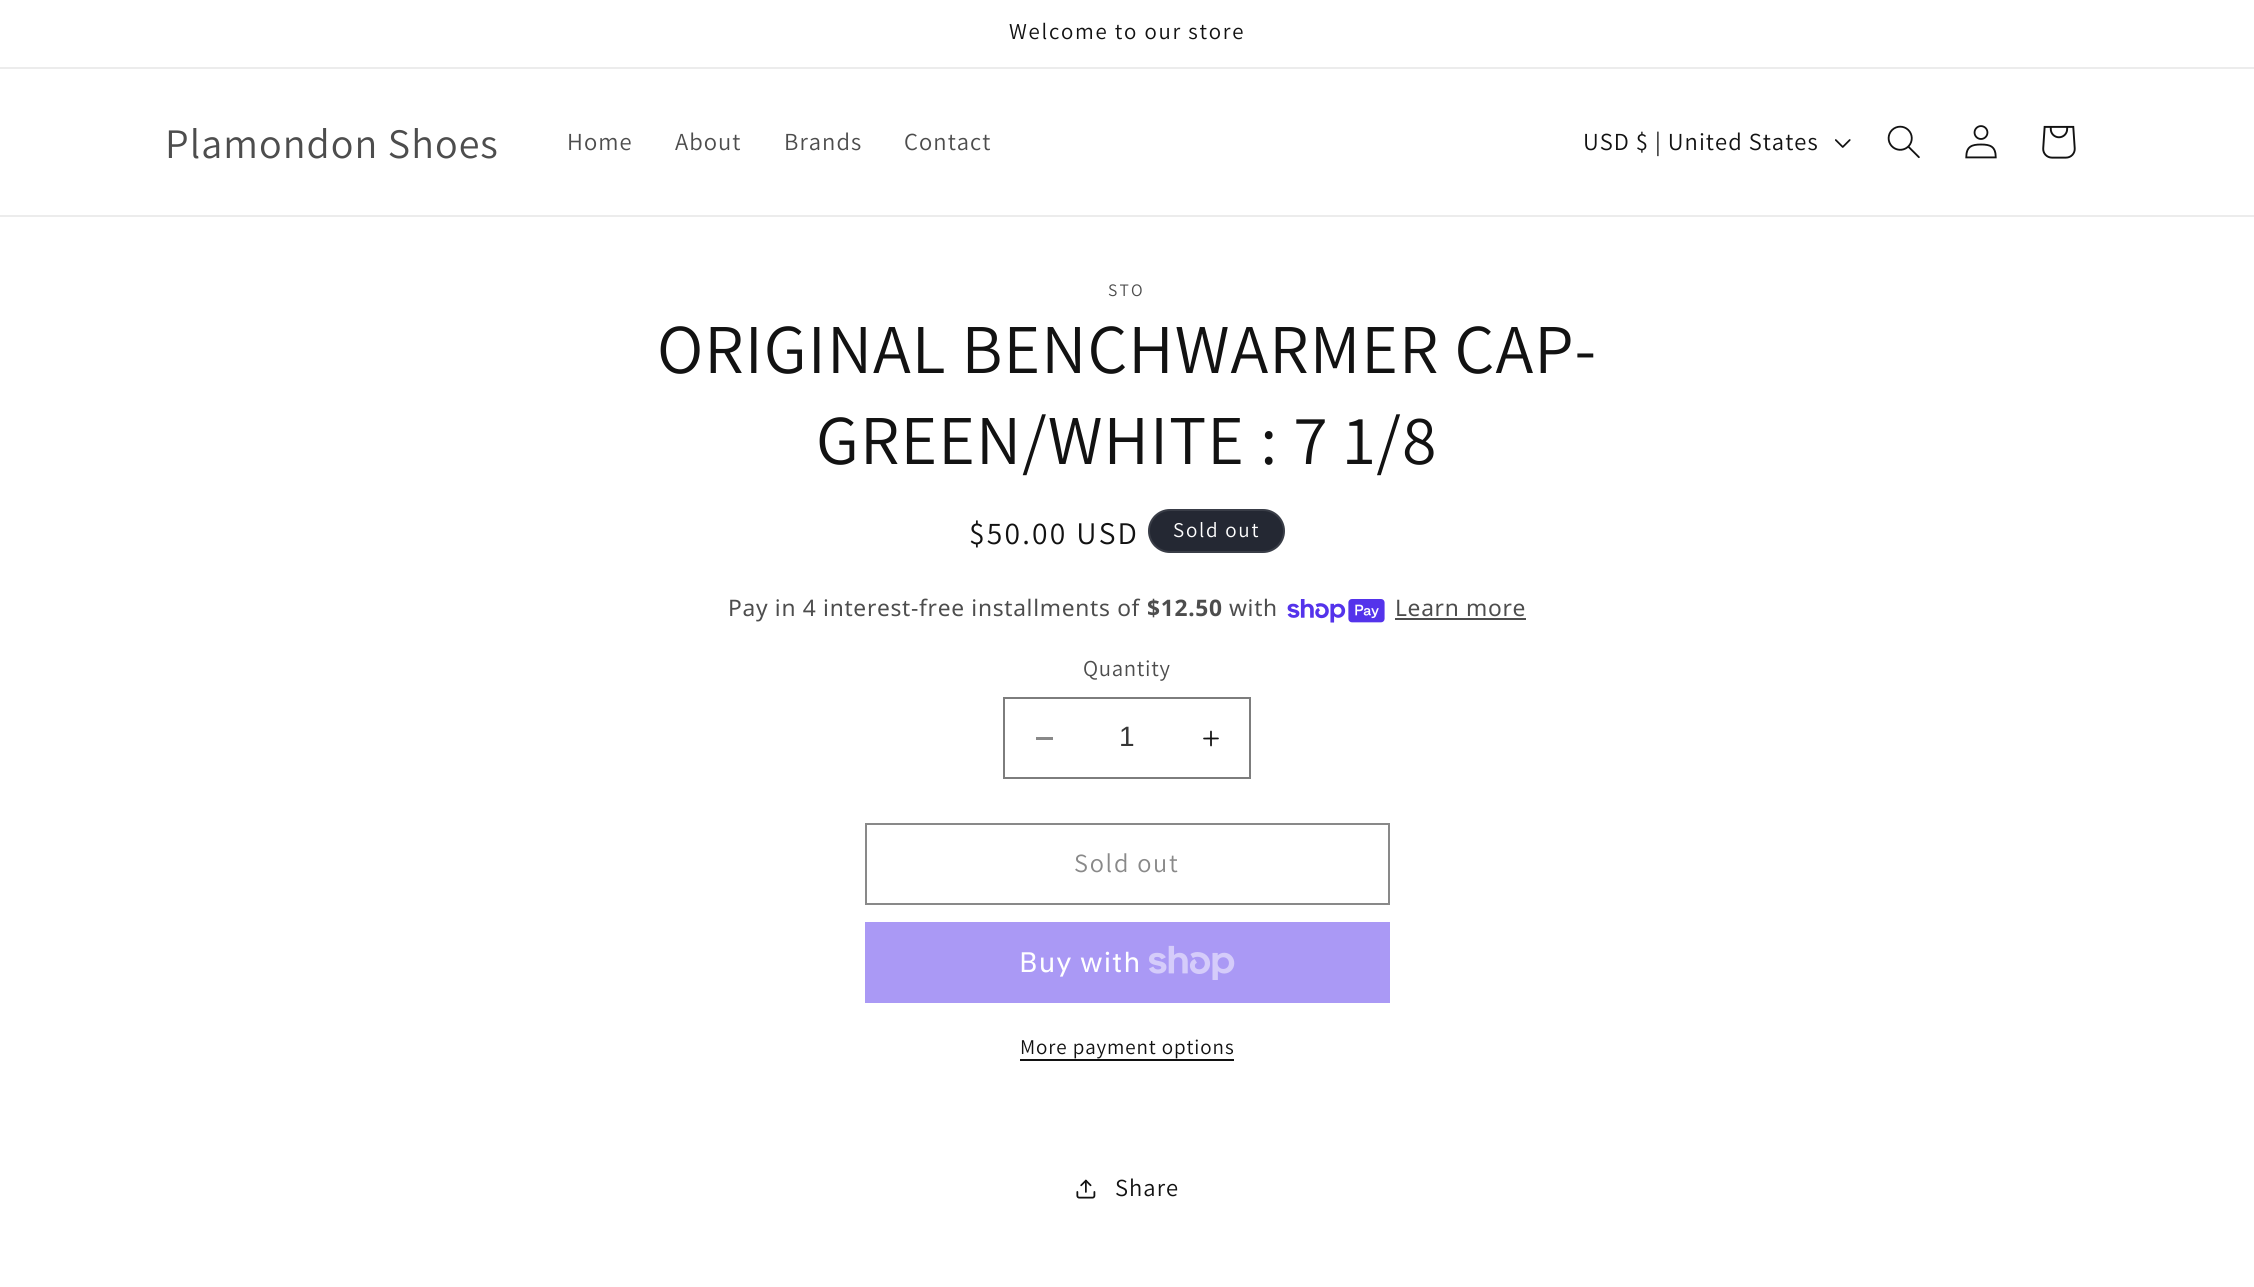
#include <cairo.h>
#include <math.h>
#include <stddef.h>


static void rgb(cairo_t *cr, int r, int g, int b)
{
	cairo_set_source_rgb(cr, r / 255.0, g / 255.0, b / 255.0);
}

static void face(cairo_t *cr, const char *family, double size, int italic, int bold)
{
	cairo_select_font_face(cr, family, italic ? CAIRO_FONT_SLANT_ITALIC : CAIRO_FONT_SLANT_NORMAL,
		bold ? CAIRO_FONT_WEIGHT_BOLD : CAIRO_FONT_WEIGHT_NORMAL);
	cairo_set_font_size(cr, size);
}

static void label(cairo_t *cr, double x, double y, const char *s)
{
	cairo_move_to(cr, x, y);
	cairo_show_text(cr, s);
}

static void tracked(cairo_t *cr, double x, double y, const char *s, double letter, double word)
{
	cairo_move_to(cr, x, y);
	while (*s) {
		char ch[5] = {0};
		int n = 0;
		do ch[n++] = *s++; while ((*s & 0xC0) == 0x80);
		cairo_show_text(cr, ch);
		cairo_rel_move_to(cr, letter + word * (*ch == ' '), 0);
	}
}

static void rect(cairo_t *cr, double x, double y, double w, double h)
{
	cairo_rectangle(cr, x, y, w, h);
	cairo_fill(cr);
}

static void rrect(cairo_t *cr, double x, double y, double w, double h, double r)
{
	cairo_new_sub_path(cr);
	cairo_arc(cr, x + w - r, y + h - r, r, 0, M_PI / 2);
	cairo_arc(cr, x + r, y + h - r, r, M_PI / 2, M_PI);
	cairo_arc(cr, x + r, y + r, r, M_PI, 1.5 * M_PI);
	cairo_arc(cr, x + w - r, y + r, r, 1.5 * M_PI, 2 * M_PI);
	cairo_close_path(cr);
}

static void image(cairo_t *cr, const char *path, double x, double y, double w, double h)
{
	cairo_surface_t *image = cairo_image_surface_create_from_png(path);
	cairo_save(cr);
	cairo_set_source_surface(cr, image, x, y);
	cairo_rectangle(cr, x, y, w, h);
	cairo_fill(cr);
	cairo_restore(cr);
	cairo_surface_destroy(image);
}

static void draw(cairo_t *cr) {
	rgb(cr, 255, 255, 255);
	cairo_paint(cr);
	rgb(cr, 236, 236, 236);
	rect(cr, 0, 67, 2254, 2);
	face(cr, "Assistant", 22.75, 0, 0);
	rgb(cr, 18, 18, 18);
	tracked(cr, 1009, 39, "Welcome to our store", 1.75, 0);
	rgb(cr, 236, 236, 236);
	rect(cr, 0, 215, 2254, 2);
	face(cr, "Assistant", 42, 0, 0);
	rgb(cr, 77, 77, 77);
	tracked(cr, 165, 158, "Plamondon Shoes", 1.05, 0);
	face(cr, "Assistant", 24.5, 0, 0);
	tracked(cr, 567, 150, "Home", 1.05, 0);
	tracked(cr, 675, 150, "About", 1.05, 0);
	tracked(cr, 784, 150, "Brands", 1.05, 0);
	tracked(cr, 904, 150, "Contact", 1.05, 0);
	rgb(cr, 18, 18, 18);
	tracked(cr, 1583, 150, "USD $ | United States", 1.05, 0);
	image(cr, "image0.png", 1835, 139, 16, 9);
	image(cr, "image1.png", 1887, 125, 33, 34);
	image(cr, "image2.png", 1965, 125, 32, 34);
	image(cr, "image3.png", 2042, 125, 34, 34);
	face(cr, "Assistant", 17.5, 0, 0);
	rgb(cr, 77, 77, 77);
	tracked(cr, 1108, 296, "STO", 2.25, 0);
	face(cr, "Assistant", 70, 0, 0);
	rgb(cr, 18, 18, 18);
	tracked(cr, 657, 373, "ORIGINAL BENCHWARMER CAP-", 1.05, 0);
	tracked(cr, 816, 464, "GREEN/WHITE : 7 1/8", 1.05, 0);
	face(cr, "Assistant", 31.5, 0, 0);
	tracked(cr, 969, 544, "$50.00 USD", 2.25, 0);
	rgb(cr, 36, 40, 51);
	rrect(cr, 1148, 509, 137, 44, 22);
	cairo_fill(cr);
	rrect(cr, 1149, 510, 135, 42, 21);
	cairo_set_source_rgba(cr, 1, 1, 1, 0.1);
	cairo_stroke(cr);
	face(cr, "Assistant", 21, 0, 0);
	rgb(cr, 255, 255, 255);
	tracked(cr, 1173, 537, "Sold out", 1.75, 0);
	face(cr, "Noto Sans", 22.75, 0, 0);
	rgb(cr, 77, 77, 77);
	tracked(cr, 728, 616, "Pay in 4 interest-free installments of", 0.7, 0);
	face(cr, "Noto Sans", 22.75, 0, 1);
	tracked(cr, 1147, 616, "$12.50", 0.7, 0);
	face(cr, "Noto Sans", 22.75, 0, 0);
	tracked(cr, 1229, 616, "with", 0.7, 0);
	image(cr, "image4.png", 1287, 599, 98, 24);
	tracked(cr, 1395, 616, "Learn more", 0.7, 0);
	rect(cr, 1395, 618, 131, 2);
	face(cr, "Assistant", 22.75, 0, 0);
	tracked(cr, 1083, 676, "Quantity", 0.7, 0);
	rgb(cr, 137, 137, 137);
	rect(cr, 1036, 737, 17, 3);
	image(cr, "image5.png", 1203, 730, 16, 17);
	cairo_rectangle(cr, 1004, 698, 246, 80);
	rgb(cr, 125, 125, 125);
	cairo_stroke(cr);
	face(cr, "Liberation Sans", 28, 0, 0);
	rgb(cr, 54, 54, 54);
	label(cr, 1119, 746, "1");
	cairo_rectangle(cr, 866, 824, 523, 80);
	rgb(cr, 137, 137, 137);
	cairo_stroke(cr);
	face(cr, "Assistant", 26.25, 0, 0);
	tracked(cr, 1074, 872, "Sold out", 1.75, 0);
	rgb(cr, 170, 153, 245);
	rect(cr, 865, 922, 525, 81);
	face(cr, "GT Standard", 28, 0, 0);
	rgb(cr, 255, 255, 255);
	tracked(cr, 1019, 972, "Buy with", 1.05, 0);
	image(cr, "image6.png", 1149, 945, 86, 35);
	face(cr, "Assistant", 21, 0, 0);
	rgb(cr, 18, 18, 18);
	tracked(cr, 1020, 1054, "More payment options", 0.9, 0);
	rect(cr, 1020, 1059, 214, 2);
	image(cr, "image7.png", 1076, 1179, 20, 20);
	face(cr, "Assistant", 24.5, 0, 0);
	tracked(cr, 1115, 1196, "Share", 1.05, 0);
}

int main(void) {
	cairo_surface_t *surface = cairo_image_surface_create(CAIRO_FORMAT_RGB24, 2254, 1287);
	cairo_t *cr = cairo_create(surface);
	cairo_font_options_t *options = cairo_font_options_create();
	cairo_font_options_set_hint_metrics(options, CAIRO_HINT_METRICS_OFF);
	cairo_font_options_set_hint_style(options, CAIRO_HINT_STYLE_NONE);
	cairo_set_font_options(cr, options);
	cairo_set_miter_limit(cr, 4);
	draw(cr);
	cairo_surface_write_to_png(surface, "render.png");
	cairo_font_options_destroy(options);
	cairo_destroy(cr);
	cairo_surface_destroy(surface);
	return 0;
}
